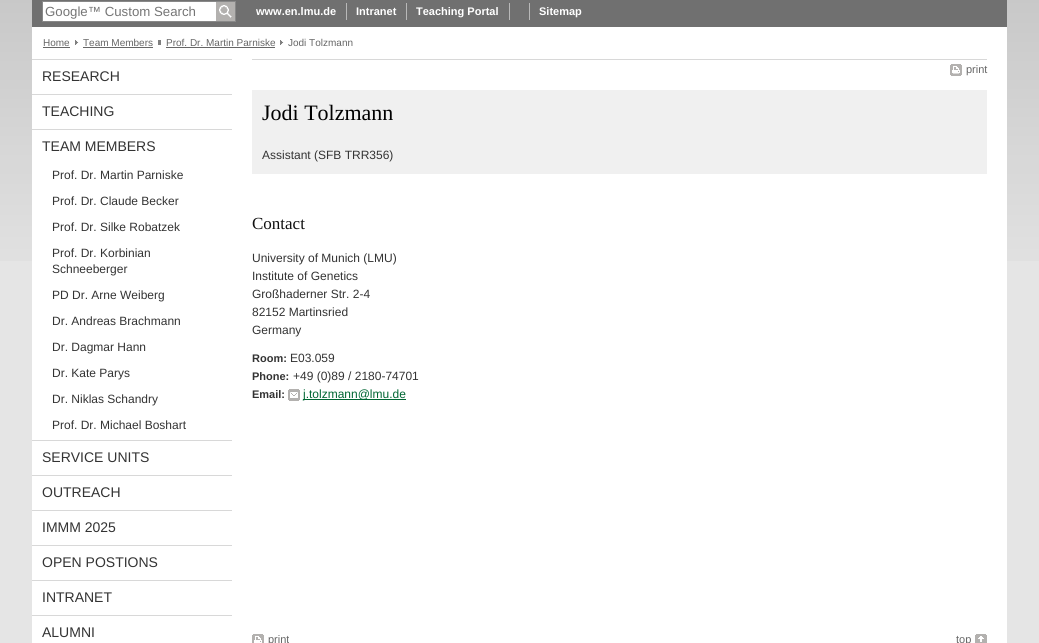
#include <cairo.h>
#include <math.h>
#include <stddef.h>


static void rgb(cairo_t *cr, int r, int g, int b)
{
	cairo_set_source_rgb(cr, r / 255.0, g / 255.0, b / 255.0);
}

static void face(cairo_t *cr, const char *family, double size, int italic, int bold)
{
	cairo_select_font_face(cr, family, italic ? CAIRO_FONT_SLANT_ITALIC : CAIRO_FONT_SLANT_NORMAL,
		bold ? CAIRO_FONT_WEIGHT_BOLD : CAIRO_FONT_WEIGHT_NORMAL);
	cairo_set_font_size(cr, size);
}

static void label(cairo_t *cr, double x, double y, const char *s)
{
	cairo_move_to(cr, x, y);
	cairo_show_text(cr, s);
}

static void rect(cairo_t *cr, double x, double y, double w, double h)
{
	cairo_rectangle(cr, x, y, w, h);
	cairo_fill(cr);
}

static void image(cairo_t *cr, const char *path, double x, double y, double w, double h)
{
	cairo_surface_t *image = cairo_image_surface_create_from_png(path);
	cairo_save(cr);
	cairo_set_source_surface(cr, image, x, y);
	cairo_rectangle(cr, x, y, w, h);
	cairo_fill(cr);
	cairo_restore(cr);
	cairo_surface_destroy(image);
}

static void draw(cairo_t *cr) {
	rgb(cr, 229, 229, 229);
	cairo_paint(cr);
	image(cr, "image0.png", 0, 0, 1039, 261);
	rgb(cr, 255, 255, 255);
	rect(cr, 32, 27, 975, 616);
	rgb(cr, 112, 112, 112);
	rect(cr, 32, 0, 975, 27);
	rgb(cr, 255, 255, 255);
	rect(cr, 43, 2, 173, 19);
	cairo_rectangle(cr, 42.5, 1.5, 193, 20);
	rgb(cr, 136, 136, 136);
	cairo_set_line_width(cr, 1);
	cairo_stroke(cr);
	face(cr, "Liberation Sans", 13.25, 0, 0);
	rgb(cr, 117, 117, 117);
	label(cr, 45, 16, "Google™ Custom Search");
	image(cr, "image1.png", 216, 2, 19, 19);
	face(cr, "Liberation Sans", 11, 0, 1);
	rgb(cr, 255, 255, 255);
	label(cr, 256, 15, "www.en.lmu.de");
	rgb(cr, 184, 184, 184);
	rect(cr, 346, 3, 1, 17);
	rgb(cr, 255, 255, 255);
	label(cr, 356, 15, "Intranet");
	rgb(cr, 184, 184, 184);
	rect(cr, 406, 3, 1, 17);
	rgb(cr, 255, 255, 255);
	label(cr, 416, 15, "Teaching Portal");
	rgb(cr, 184, 184, 184);
	rect(cr, 509, 3, 1, 17);
	rect(cr, 529, 3, 1, 17);
	rgb(cr, 255, 255, 255);
	label(cr, 539, 15, "Sitemap");
	face(cr, "Liberation Sans", 10, 0, 0);
	rgb(cr, 102, 102, 102);
	label(cr, 43, 46, "Home");
	rect(cr, 43, 47, 27, 1);
	image(cr, "image2.png", 75, 40, 4, 5);
	label(cr, 83, 46, "Team Members");
	rect(cr, 83, 47, 70, 1);
	rgb(cr, 127, 127, 127);
	rect(cr, 158, 40, 3, 5);
	rgb(cr, 102, 102, 102);
	label(cr, 166, 46, "Prof. Dr. Martin Parniske");
	rect(cr, 166, 47, 109, 1);
	image(cr, "image2.png", 280, 40, 4, 5);
	label(cr, 288, 46, "Jodi Tolzmann");
	rgb(cr, 216, 216, 216);
	rect(cr, 32, 59, 200, 1);
	rect(cr, 32, 94, 200, 1);
	face(cr, "Liberation Sans", 14, 0, 0);
	rgb(cr, 51, 51, 51);
	label(cr, 42, 81, "RESEARCH");
	rgb(cr, 216, 216, 216);
	rect(cr, 32, 129, 200, 1);
	rgb(cr, 51, 51, 51);
	label(cr, 42, 116, "TEACHING");
	rgb(cr, 216, 216, 216);
	rect(cr, 32, 440, 200, 1);
	rgb(cr, 51, 51, 51);
	label(cr, 42, 151, "TEAM MEMBERS");
	face(cr, "Liberation Sans", 12, 0, 0);
	label(cr, 52, 179, "Prof. Dr. Martin Parniske");
	label(cr, 52, 205, "Prof. Dr. Claude Becker");
	label(cr, 52, 231, "Prof. Dr. Silke Robatzek");
	label(cr, 52, 257, "Prof. Dr. Korbinian");
	label(cr, 52, 273, "Schneeberger");
	label(cr, 52, 299, "PD Dr. Arne Weiberg");
	label(cr, 52, 325, "Dr. Andreas Brachmann");
	label(cr, 52, 351, "Dr. Dagmar Hann");
	label(cr, 52, 377, "Dr. Kate Parys");
	label(cr, 52, 403, "Dr. Niklas Schandry");
	label(cr, 52, 429, "Prof. Dr. Michael Boshart");
	rgb(cr, 216, 216, 216);
	rect(cr, 32, 475, 200, 1);
	face(cr, "Liberation Sans", 14, 0, 0);
	rgb(cr, 51, 51, 51);
	label(cr, 42, 462, "SERVICE UNITS");
	rgb(cr, 216, 216, 216);
	rect(cr, 32, 510, 200, 1);
	rgb(cr, 51, 51, 51);
	label(cr, 42, 497, "OUTREACH");
	rgb(cr, 216, 216, 216);
	rect(cr, 32, 545, 200, 1);
	rgb(cr, 51, 51, 51);
	label(cr, 42, 532, "IMMM 2025");
	rgb(cr, 216, 216, 216);
	rect(cr, 32, 580, 200, 1);
	rgb(cr, 51, 51, 51);
	label(cr, 42, 567, "OPEN POSTIONS");
	rgb(cr, 216, 216, 216);
	rect(cr, 32, 615, 200, 1);
	rgb(cr, 51, 51, 51);
	label(cr, 42, 602, "INTRANET");
	label(cr, 42, 637, "ALUMNI");
	rgb(cr, 216, 216, 216);
	rect(cr, 252, 59, 735, 1);
	image(cr, "image3.png", 950, 64, 12, 12);
	face(cr, "Liberation Sans", 11, 0, 0);
	rgb(cr, 102, 102, 102);
	label(cr, 966, 73, "print");
	rgb(cr, 240, 240, 240);
	rect(cr, 252, 90, 735, 84);
	face(cr, "Liberation Serif", 22, 0, 0);
	rgb(cr, 0, 0, 0);
	label(cr, 262, 120, "Jodi Tolzmann");
	face(cr, "Liberation Sans", 12, 0, 0);
	rgb(cr, 51, 51, 51);
	label(cr, 262, 159, "Assistant (SFB TRR356)");
	face(cr, "Liberation Serif", 17, 0, 0);
	rgb(cr, 17, 17, 17);
	label(cr, 252, 229, "Contact");
	face(cr, "Liberation Sans", 12, 0, 0);
	rgb(cr, 51, 51, 51);
	label(cr, 252, 262, "University of Munich (LMU)");
	label(cr, 252, 280, "Institute of Genetics");
	label(cr, 252, 298, "Großhaderner Str. 2-4");
	label(cr, 252, 316, "82152 Martinsried");
	label(cr, 252, 334, "Germany");
	face(cr, "Liberation Sans", 11, 0, 1);
	label(cr, 252, 362, "Room:");
	face(cr, "Liberation Sans", 12, 0, 0);
	label(cr, 290, 362, "E03.059");
	face(cr, "Liberation Sans", 11, 0, 1);
	label(cr, 252, 380, "Phone:");
	face(cr, "Liberation Sans", 12, 0, 0);
	label(cr, 293, 380, "+49 (0)89 / 2180-74701");
	face(cr, "Liberation Sans", 11, 0, 1);
	label(cr, 252, 398, "Email:");
	image(cr, "image4.png", 288, 389, 12, 12);
	rgb(cr, 0, 102, 51);
	rect(cr, 303, 399, 103, 1);
	face(cr, "Liberation Sans", 12, 0, 0);
	label(cr, 303, 398, "j.tolzmann@lmu.de");
	image(cr, "image5.png", 252, 634, 12, 9);
	face(cr, "Liberation Sans", 11, 0, 0);
	rgb(cr, 102, 102, 102);
	label(cr, 268, 643, "print");
	image(cr, "image6.png", 975, 634, 12, 9);
	label(cr, 956, 643, "top");
}

int main(void) {
	cairo_surface_t *surface = cairo_image_surface_create(CAIRO_FORMAT_RGB24, 1039, 643);
	cairo_t *cr = cairo_create(surface);
	cairo_font_options_t *options = cairo_font_options_create();
	cairo_font_options_set_hint_metrics(options, CAIRO_HINT_METRICS_OFF);
	cairo_font_options_set_hint_style(options, CAIRO_HINT_STYLE_NONE);
	cairo_set_font_options(cr, options);
	cairo_set_miter_limit(cr, 4);
	draw(cr);
	cairo_surface_write_to_png(surface, "render.png");
	cairo_font_options_destroy(options);
	cairo_destroy(cr);
	cairo_surface_destroy(surface);
	return 0;
}
